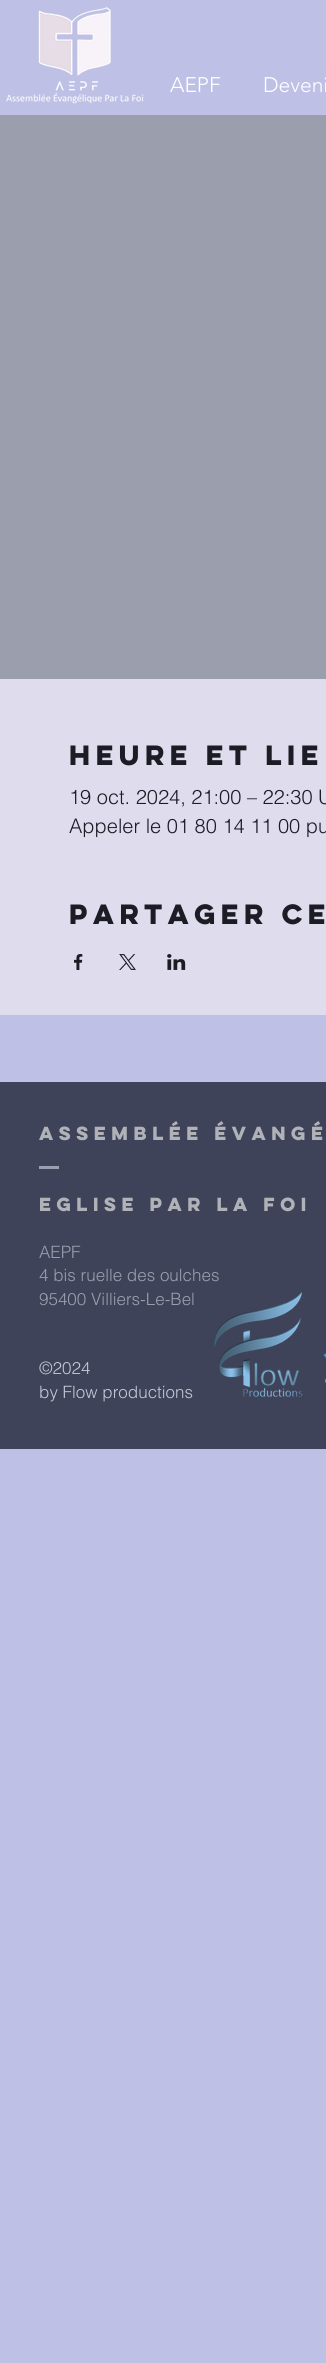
#include <cairo.h>
#include <math.h>
#include <stddef.h>


static void rgb(cairo_t *cr, int r, int g, int b)
{
	cairo_set_source_rgb(cr, r / 255.0, g / 255.0, b / 255.0);
}

static void face(cairo_t *cr, const char *family, double size, int italic, int bold)
{
	cairo_select_font_face(cr, family, italic ? CAIRO_FONT_SLANT_ITALIC : CAIRO_FONT_SLANT_NORMAL,
		bold ? CAIRO_FONT_WEIGHT_BOLD : CAIRO_FONT_WEIGHT_NORMAL);
	cairo_set_font_size(cr, size);
}

static void label(cairo_t *cr, double x, double y, const char *s)
{
	cairo_move_to(cr, x, y);
	cairo_show_text(cr, s);
}

static void tracked(cairo_t *cr, double x, double y, const char *s, double letter, double word)
{
	cairo_move_to(cr, x, y);
	while (*s) {
		char ch[5] = {0};
		int n = 0;
		do ch[n++] = *s++; while ((*s & 0xC0) == 0x80);
		cairo_show_text(cr, ch);
		cairo_rel_move_to(cr, letter + word * (*ch == ' '), 0);
	}
}

static void rect(cairo_t *cr, double x, double y, double w, double h)
{
	cairo_rectangle(cr, x, y, w, h);
	cairo_fill(cr);
}

static void image(cairo_t *cr, const char *path, double x, double y, double w, double h)
{
	cairo_surface_t *image = cairo_image_surface_create_from_png(path);
	cairo_save(cr);
	cairo_set_source_surface(cr, image, x, y);
	cairo_rectangle(cr, x, y, w, h);
	cairo_fill(cr);
	cairo_restore(cr);
	cairo_surface_destroy(image);
}

static void draw(cairo_t *cr) {
	rgb(cr, 190, 192, 230);
	cairo_paint(cr);
	image(cr, "image0.png", 6, 7, 138, 97);
	face(cr, "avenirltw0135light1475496 Light", 21, 0, 0);
	rgb(cr, 255, 255, 255);
	label(cr, 170, 92, "AEPF");
	label(cr, 263, 92, "Deveni");
	rgb(cr, 155, 158, 172);
	rect(cr, 0, 115, 326, 564);
	rgb(cr, 223, 220, 237);
	rect(cr, 0, 679, 326, 336);
	face(cr, "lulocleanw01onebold", 25, 0, 1);
	rgb(cr, 27, 28, 36);
	label(cr, 69, 765, "Heure et lie");
	face(cr, "helvetica Light", 20, 0, 0);
	label(cr, 69, 804, "19 oct. 2024, 21:00 – 22:30 U");
	label(cr, 69, 833, "Appeler le 01 80 14 11 00 pu");
	face(cr, "lulocleanw01onebold", 25, 0, 1);
	label(cr, 69, 924, "Partager ce");
	image(cr, "image1.png", 74, 954, 9, 16);
	image(cr, "image2.png", 119, 954, 17, 16);
	image(cr, "image3.png", 167, 954, 19, 16);
	rgb(cr, 63, 67, 89);
	rect(cr, 0, 1082, 326, 367);
	face(cr, "lulocleanw01onebold", 17, 0, 1);
	rgb(cr, 176, 178, 184);
	tracked(cr, 39, 1140, "Assemblée évangé", 1.75, 0);
	tracked(cr, 39, 1211, "EGLISE PAR LA FOI", 1.75, 0);
	rgb(cr, 155, 158, 172);
	rect(cr, 39, 1166, 20, 3);
	face(cr, "helvetica Light", 17, 0, 0);
	label(cr, 39, 1258, "AEPF");
	label(cr, 39, 1281, "4 bis ruelle des oulches");
	label(cr, 39, 1305, "95400 Villiers-Le-Bel");
	rgb(cr, 198, 200, 213);
	label(cr, 39, 1374, "©2024");
	label(cr, 39, 1398, "by Flow productions");
	image(cr, "image4.png", 214, 1292, 89, 105);
	image(cr, "image5.png", 323, 1353, 3, 30);
}

int main(void) {
	cairo_surface_t *surface = cairo_image_surface_create(CAIRO_FORMAT_RGB24, 326, 2363);
	cairo_t *cr = cairo_create(surface);
	cairo_font_options_t *options = cairo_font_options_create();
	cairo_font_options_set_hint_metrics(options, CAIRO_HINT_METRICS_OFF);
	cairo_font_options_set_hint_style(options, CAIRO_HINT_STYLE_NONE);
	cairo_set_font_options(cr, options);
	cairo_set_miter_limit(cr, 4);
	draw(cr);
	cairo_surface_write_to_png(surface, "render.png");
	cairo_font_options_destroy(options);
	cairo_destroy(cr);
	cairo_surface_destroy(surface);
	return 0;
}
